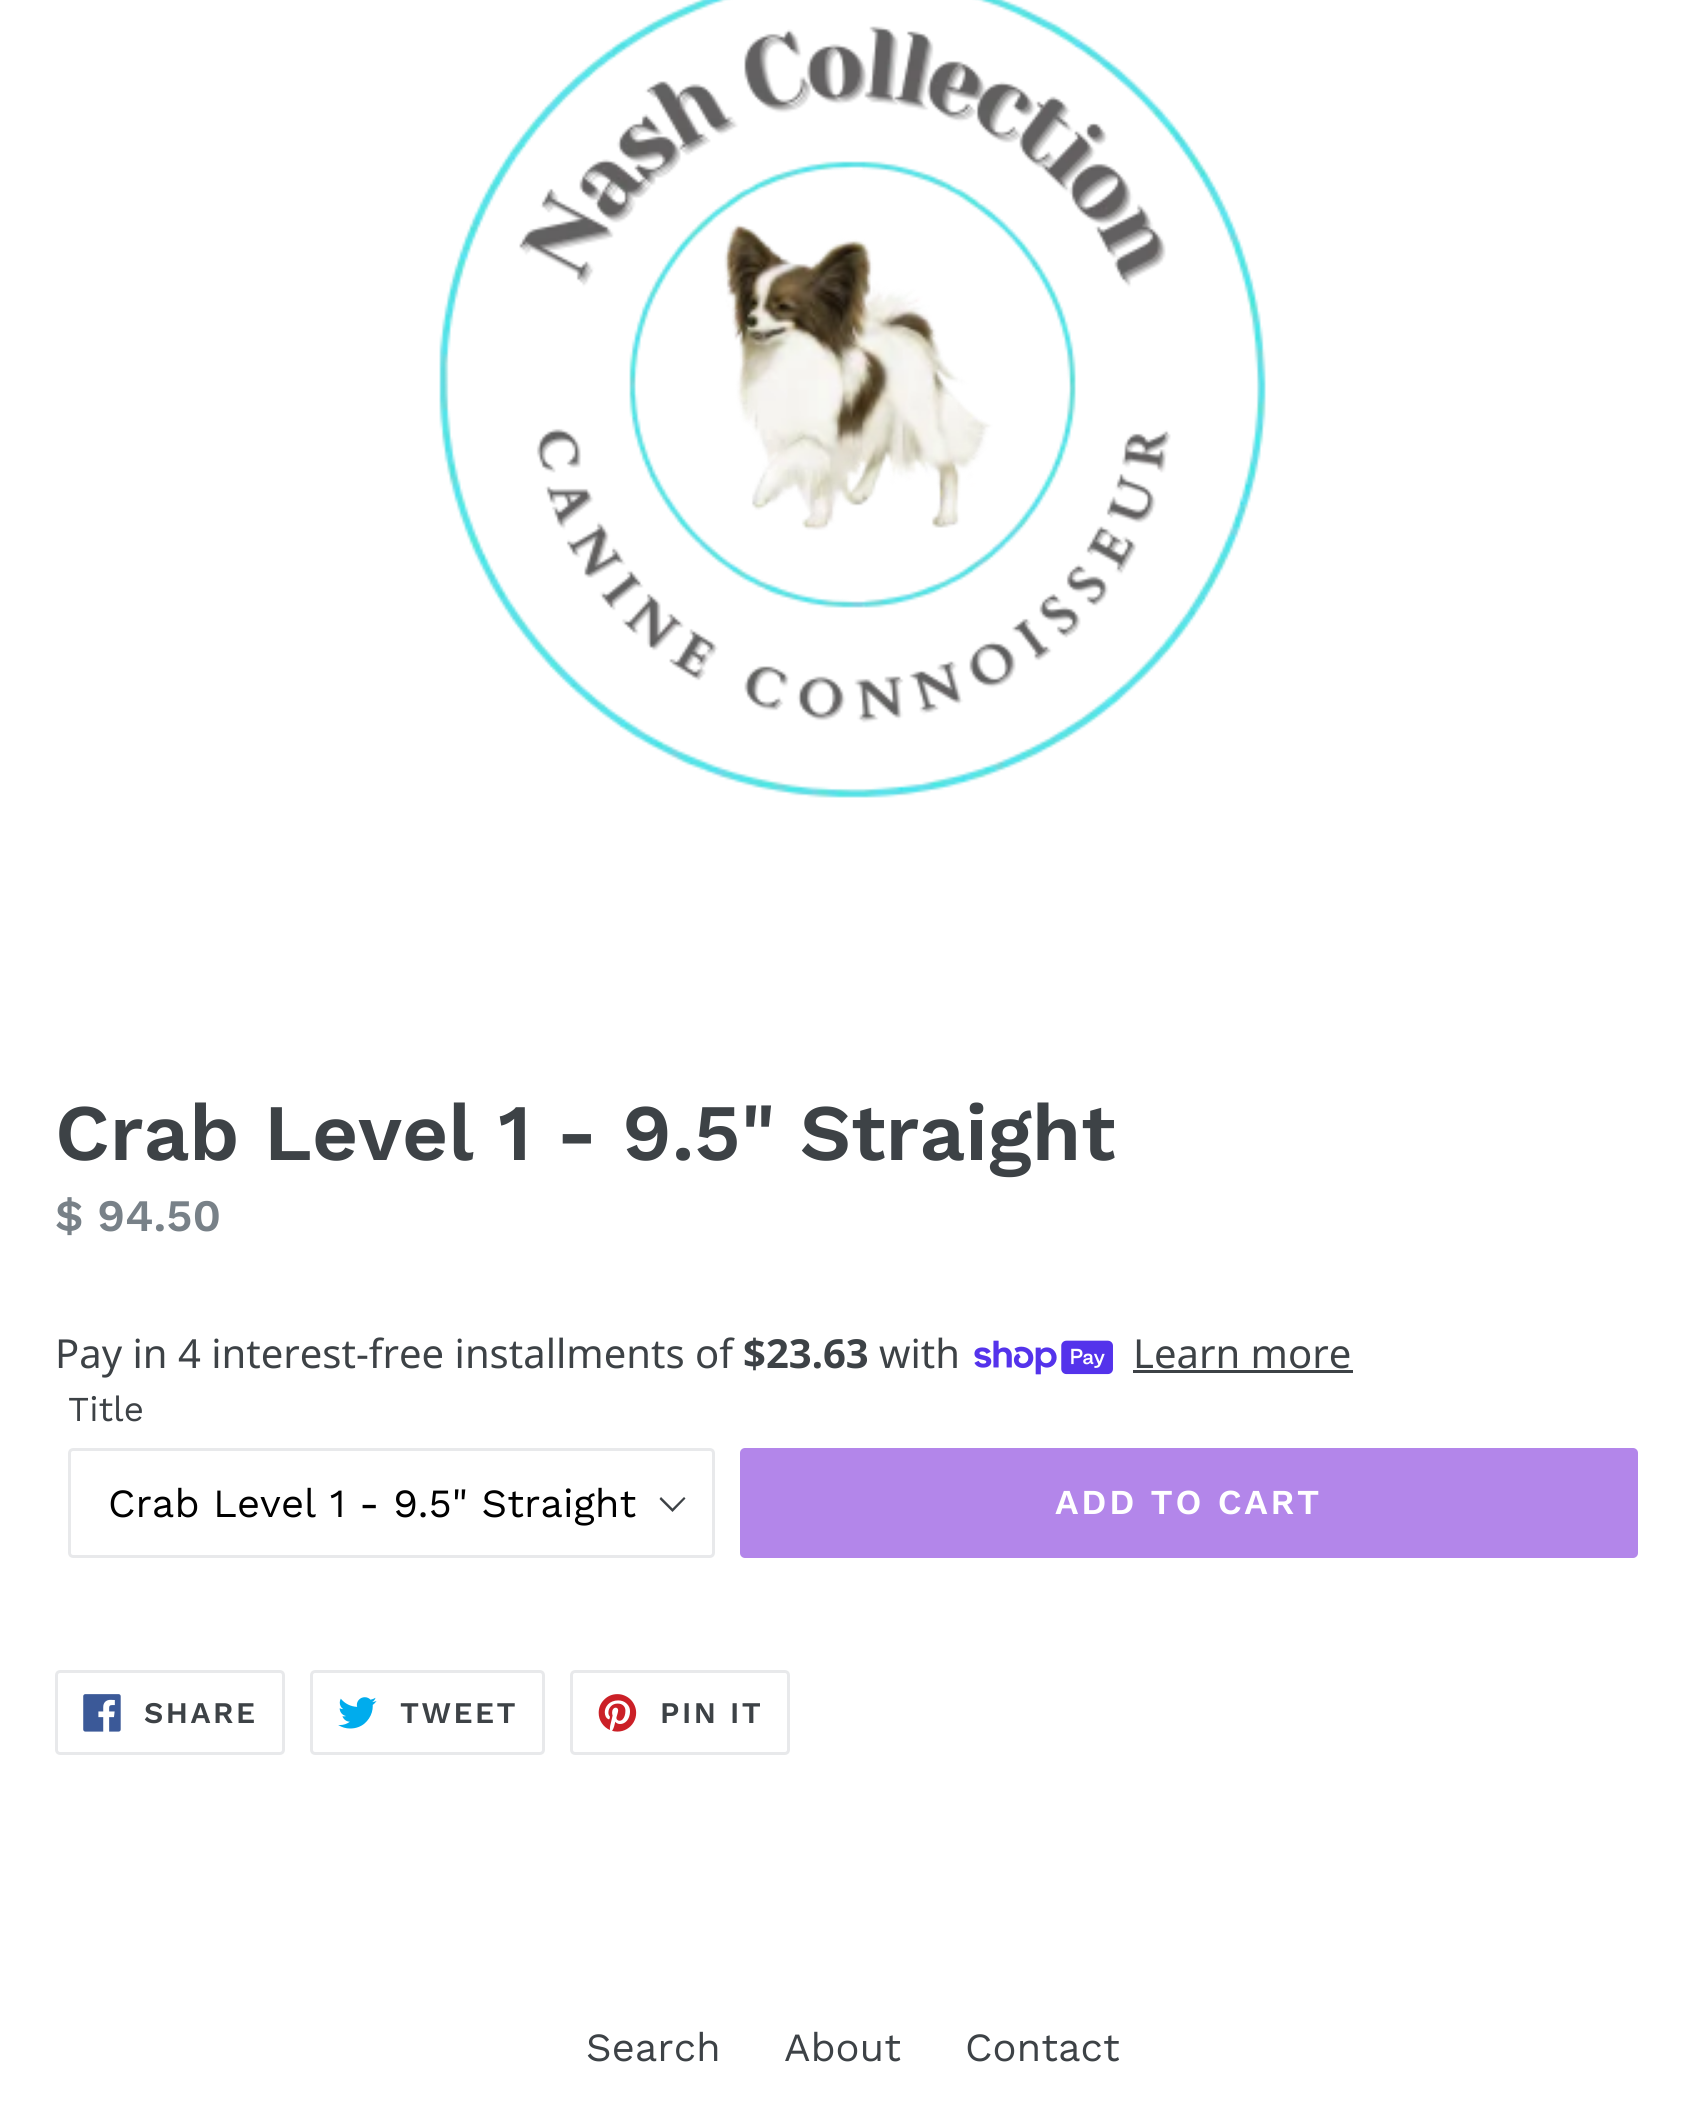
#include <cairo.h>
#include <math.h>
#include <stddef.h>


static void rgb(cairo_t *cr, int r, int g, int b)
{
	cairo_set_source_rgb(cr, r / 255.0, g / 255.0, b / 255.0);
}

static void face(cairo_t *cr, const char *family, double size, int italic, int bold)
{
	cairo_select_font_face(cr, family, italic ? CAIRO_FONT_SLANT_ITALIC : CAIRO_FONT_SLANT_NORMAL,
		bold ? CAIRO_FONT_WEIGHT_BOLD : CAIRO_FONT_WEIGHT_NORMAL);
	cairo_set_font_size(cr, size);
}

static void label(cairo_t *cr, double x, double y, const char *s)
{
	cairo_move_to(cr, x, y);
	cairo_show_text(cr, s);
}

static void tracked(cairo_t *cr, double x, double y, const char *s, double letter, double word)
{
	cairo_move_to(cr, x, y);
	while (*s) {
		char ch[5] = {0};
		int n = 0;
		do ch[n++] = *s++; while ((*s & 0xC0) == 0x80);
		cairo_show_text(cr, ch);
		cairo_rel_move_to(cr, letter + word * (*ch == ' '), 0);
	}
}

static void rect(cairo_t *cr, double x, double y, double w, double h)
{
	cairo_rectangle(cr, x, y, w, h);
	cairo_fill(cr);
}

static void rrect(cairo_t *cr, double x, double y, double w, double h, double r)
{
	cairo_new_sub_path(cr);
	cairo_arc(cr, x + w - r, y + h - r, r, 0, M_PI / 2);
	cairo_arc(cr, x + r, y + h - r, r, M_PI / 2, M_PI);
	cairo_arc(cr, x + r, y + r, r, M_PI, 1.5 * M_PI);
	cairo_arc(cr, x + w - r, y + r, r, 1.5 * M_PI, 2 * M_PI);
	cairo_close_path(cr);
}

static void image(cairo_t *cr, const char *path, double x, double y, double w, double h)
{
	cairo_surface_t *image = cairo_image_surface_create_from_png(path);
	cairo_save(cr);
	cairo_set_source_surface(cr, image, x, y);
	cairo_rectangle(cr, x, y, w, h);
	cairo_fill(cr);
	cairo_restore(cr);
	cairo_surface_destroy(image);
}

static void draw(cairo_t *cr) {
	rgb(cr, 255, 255, 255);
	cairo_paint(cr);
	image(cr, "image0.png", 439, 0, 827, 798);
	face(cr, "Work Sans SemiBold", 80, 0, 0);
	rgb(cr, 61, 66, 70);
	label(cr, 55, 1160, "Crab Level 1 - 9.5\" Straight");
	face(cr, "Work Sans SemiBold", 45, 0, 0);
	rgb(cr, 120, 129, 136);
	label(cr, 55, 1231, "$ 94.50");
	face(cr, "Noto Sans", 40, 0, 0);
	rgb(cr, 61, 66, 70);
	label(cr, 55, 1368, "Pay in 4 interest-free installments of");
	face(cr, "Noto Sans", 40, 0, 1);
	label(cr, 743, 1368, "$23.63");
	face(cr, "Noto Sans", 40, 0, 0);
	label(cr, 879, 1368, "with");
	image(cr, "image1.png", 974, 1340, 139, 35);
	label(cr, 1133, 1368, "Learn more");
	rect(cr, 1133, 1370, 220, 3);
	face(cr, "Work Sans", 35, 0, 0);
	label(cr, 68, 1421, "Title");
	cairo_new_path(cr);
	cairo_move_to(cr, 672.5, 1512);
	cairo_line_to(cr, 659.5, 1499);
	cairo_line_to(cr, 661, 1497);
	cairo_line_to(cr, 672.5, 1508.5);
	cairo_line_to(cr, 684, 1497);
	cairo_line_to(cr, 685.5, 1498.5);
	cairo_close_path(cr);
	cairo_fill(cr);
	rrect(cr, 69.5, 1449.5, 644, 107, 3.5);
	rgb(cr, 232, 233, 235);
	cairo_set_line_width(cr, 3);
	cairo_stroke(cr);
	face(cr, "Work Sans", 40, 0, 0);
	rgb(cr, 0, 0, 0);
	label(cr, 108, 1517, "Crab Level 1 - 9.5\" Straight");
	rgb(cr, 179, 134, 234);
	rrect(cr, 740, 1448, 898, 110, 5);
	cairo_fill(cr);
	face(cr, "Work Sans SemiBold", 35, 0, 0);
	rgb(cr, 255, 255, 255);
	tracked(cr, 1055, 1514, "ADD TO CART", 2.75, 0);
	rrect(cr, 56.5, 1671.5, 227, 82, 3.5);
	rgb(cr, 232, 233, 235);
	cairo_stroke(cr);
	image(cr, "image2.png", 83, 1694, 38, 38);
	face(cr, "Work Sans SemiBold", 30, 0, 0);
	rgb(cr, 61, 66, 70);
	tracked(cr, 144, 1723, "SHARE", 2.5, 0);
	rrect(cr, 311.5, 1671.5, 232, 82, 3.5);
	rgb(cr, 232, 233, 235);
	cairo_stroke(cr);
	image(cr, "image3.png", 338, 1697, 39, 32);
	rgb(cr, 61, 66, 70);
	tracked(cr, 400, 1723, "TWEET", 2.5, 0);
	rrect(cr, 571.5, 1671.5, 217, 82, 3.5);
	rgb(cr, 232, 233, 235);
	cairo_stroke(cr);
	image(cr, "image4.png", 598, 1694, 39, 38);
	rgb(cr, 61, 66, 70);
	tracked(cr, 660, 1723, "PIN IT", 2.5, 0);
	face(cr, "Work Sans", 40, 0, 0);
	label(cr, 586, 2061, "Search");
	label(cr, 784, 2061, "About");
	label(cr, 965, 2061, "Contact");
}

int main(void) {
	cairo_surface_t *surface = cairo_image_surface_create(CAIRO_FORMAT_RGB24, 1704, 2115);
	cairo_t *cr = cairo_create(surface);
	cairo_font_options_t *options = cairo_font_options_create();
	cairo_font_options_set_hint_metrics(options, CAIRO_HINT_METRICS_OFF);
	cairo_font_options_set_hint_style(options, CAIRO_HINT_STYLE_NONE);
	cairo_set_font_options(cr, options);
	cairo_set_miter_limit(cr, 4);
	draw(cr);
	cairo_surface_write_to_png(surface, "render.png");
	cairo_font_options_destroy(options);
	cairo_destroy(cr);
	cairo_surface_destroy(surface);
	return 0;
}
